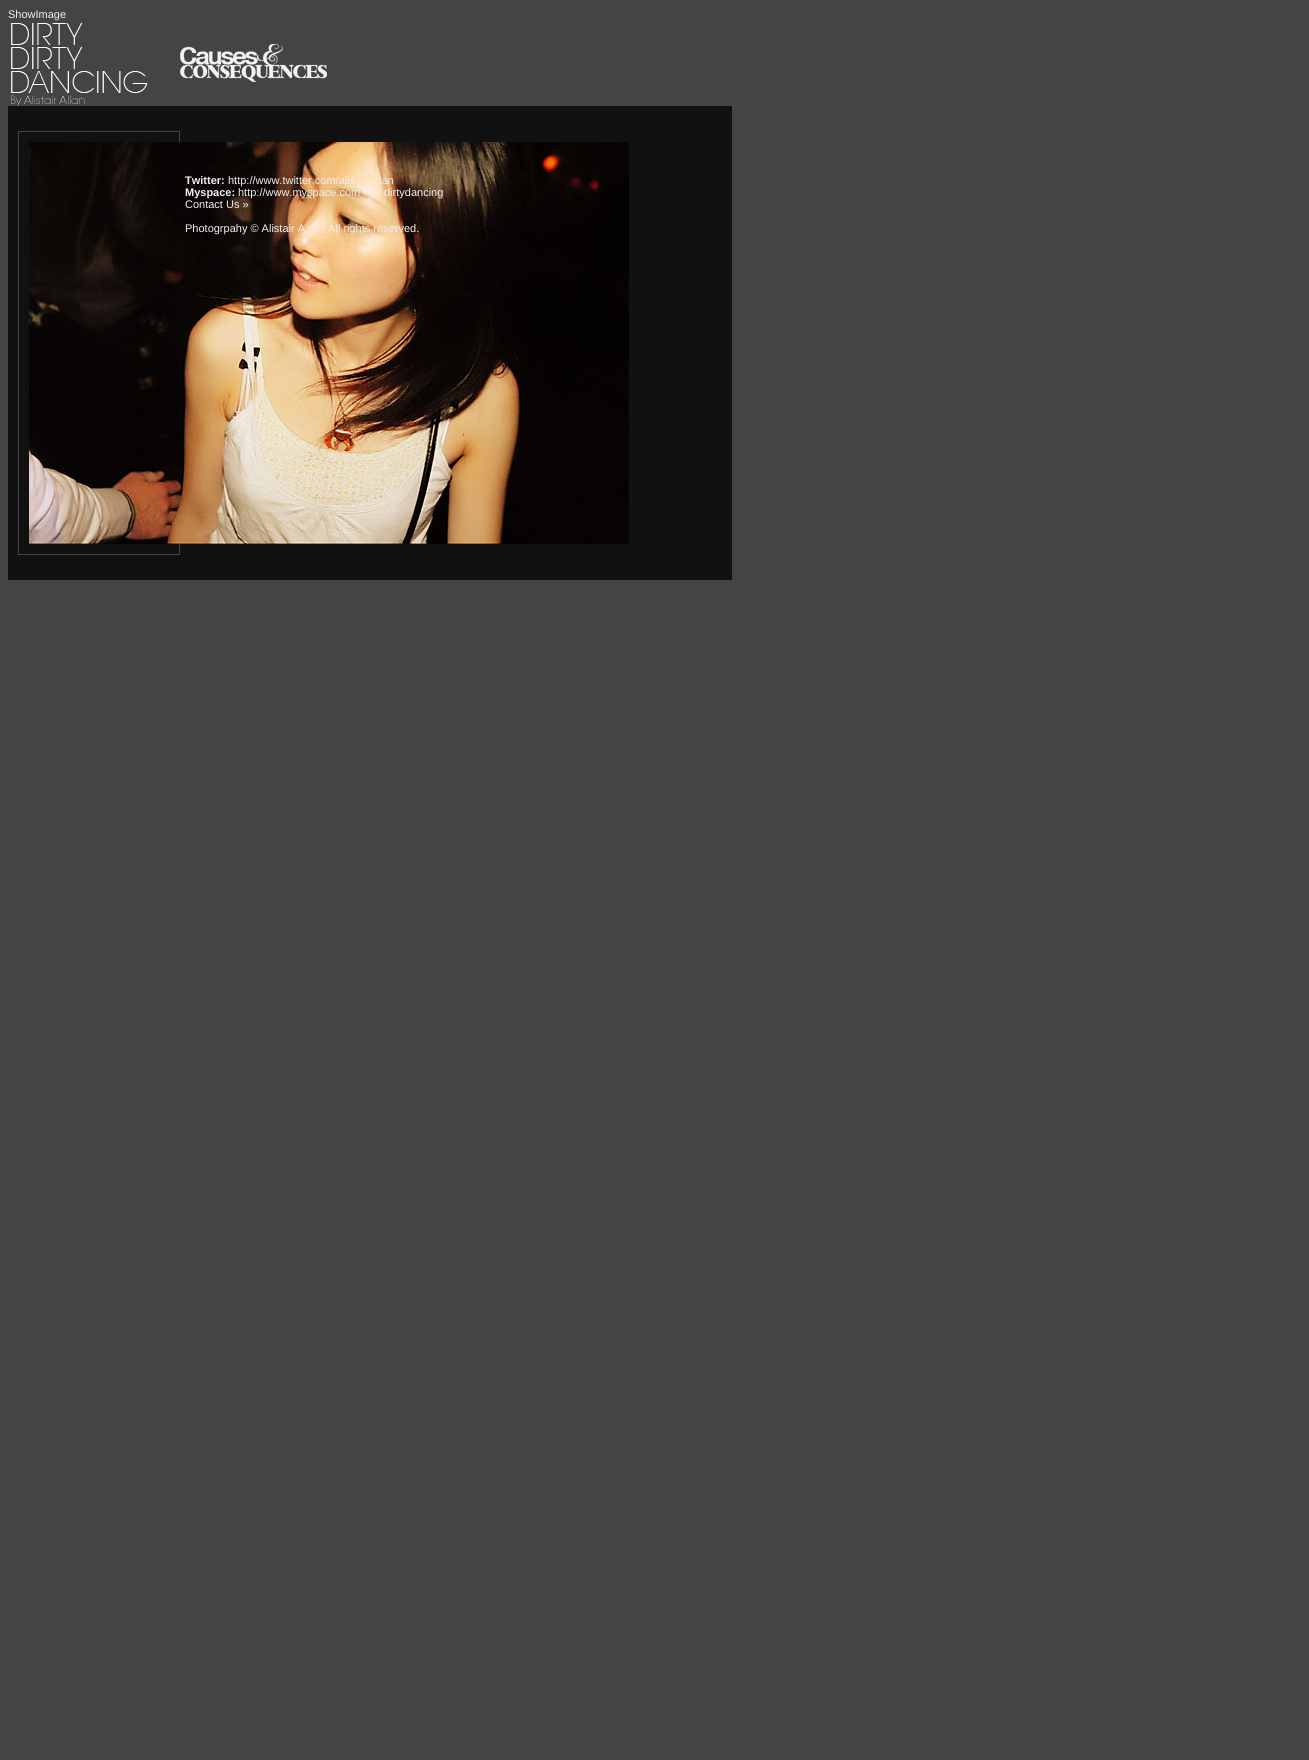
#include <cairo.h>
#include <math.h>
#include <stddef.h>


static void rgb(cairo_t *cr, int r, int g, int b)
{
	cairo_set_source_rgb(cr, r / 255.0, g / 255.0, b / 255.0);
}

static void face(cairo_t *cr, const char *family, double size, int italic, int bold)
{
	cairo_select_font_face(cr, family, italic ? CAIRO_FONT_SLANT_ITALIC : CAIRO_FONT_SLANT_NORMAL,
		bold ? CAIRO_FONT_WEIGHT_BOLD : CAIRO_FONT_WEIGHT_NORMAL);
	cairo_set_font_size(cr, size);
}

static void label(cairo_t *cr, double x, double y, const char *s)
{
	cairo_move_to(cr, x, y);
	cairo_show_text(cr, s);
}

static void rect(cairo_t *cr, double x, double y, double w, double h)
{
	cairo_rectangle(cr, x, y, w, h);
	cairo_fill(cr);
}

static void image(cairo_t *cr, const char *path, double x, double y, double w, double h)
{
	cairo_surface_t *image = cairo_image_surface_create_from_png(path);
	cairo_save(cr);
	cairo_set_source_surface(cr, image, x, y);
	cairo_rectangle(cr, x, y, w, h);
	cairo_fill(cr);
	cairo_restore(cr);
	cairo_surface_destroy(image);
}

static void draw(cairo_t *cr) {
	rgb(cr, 68, 68, 68);
	cairo_paint(cr);
	face(cr, "Liberation Sans", 11, 0, 0);
	rgb(cr, 240, 240, 240);
	label(cr, 8, 18, "ShowImage");
	image(cr, "image0.png", 11, 23, 137, 83);
	image(cr, "image1.png", 180, 44, 147, 38);
	rgb(cr, 17, 17, 17);
	rect(cr, 8, 106, 724, 474);
	cairo_rectangle(cr, 18.5, 131.5, 161, 423);
	rgb(cr, 68, 68, 68);
	cairo_set_line_width(cr, 1);
	cairo_stroke(cr);
	image(cr, "image2.png", 29, 142, 600, 402);
	face(cr, "Liberation Sans", 11, 0, 1);
	rgb(cr, 240, 240, 240);
	label(cr, 185, 184, "Twitter:");
	face(cr, "Liberation Sans", 11, 0, 0);
	label(cr, 228, 184, "http://www.twitter.com/alis");
	label(cr, 379, 184, "lan");
	face(cr, "Liberation Sans", 11, 0, 1);
	label(cr, 185, 196, "Myspace:");
	face(cr, "Liberation Sans", 11, 0, 0);
	label(cr, 238, 196, "http://www.myspace.com");
	label(cr, 384, 196, "dirtydancing");
	label(cr, 185, 208, "Contact Us »");
	label(cr, 185, 232, "Photogrpahy © Alistair A");
	label(cr, 322, 232, ". All rights reserved.");
}

int main(void) {
	cairo_surface_t *surface = cairo_image_surface_create(CAIRO_FORMAT_RGB24, 1309, 1760);
	cairo_t *cr = cairo_create(surface);
	cairo_font_options_t *options = cairo_font_options_create();
	cairo_font_options_set_hint_metrics(options, CAIRO_HINT_METRICS_OFF);
	cairo_font_options_set_hint_style(options, CAIRO_HINT_STYLE_NONE);
	cairo_set_font_options(cr, options);
	cairo_set_miter_limit(cr, 4);
	draw(cr);
	cairo_surface_write_to_png(surface, "render.png");
	cairo_font_options_destroy(options);
	cairo_destroy(cr);
	cairo_surface_destroy(surface);
	return 0;
}
